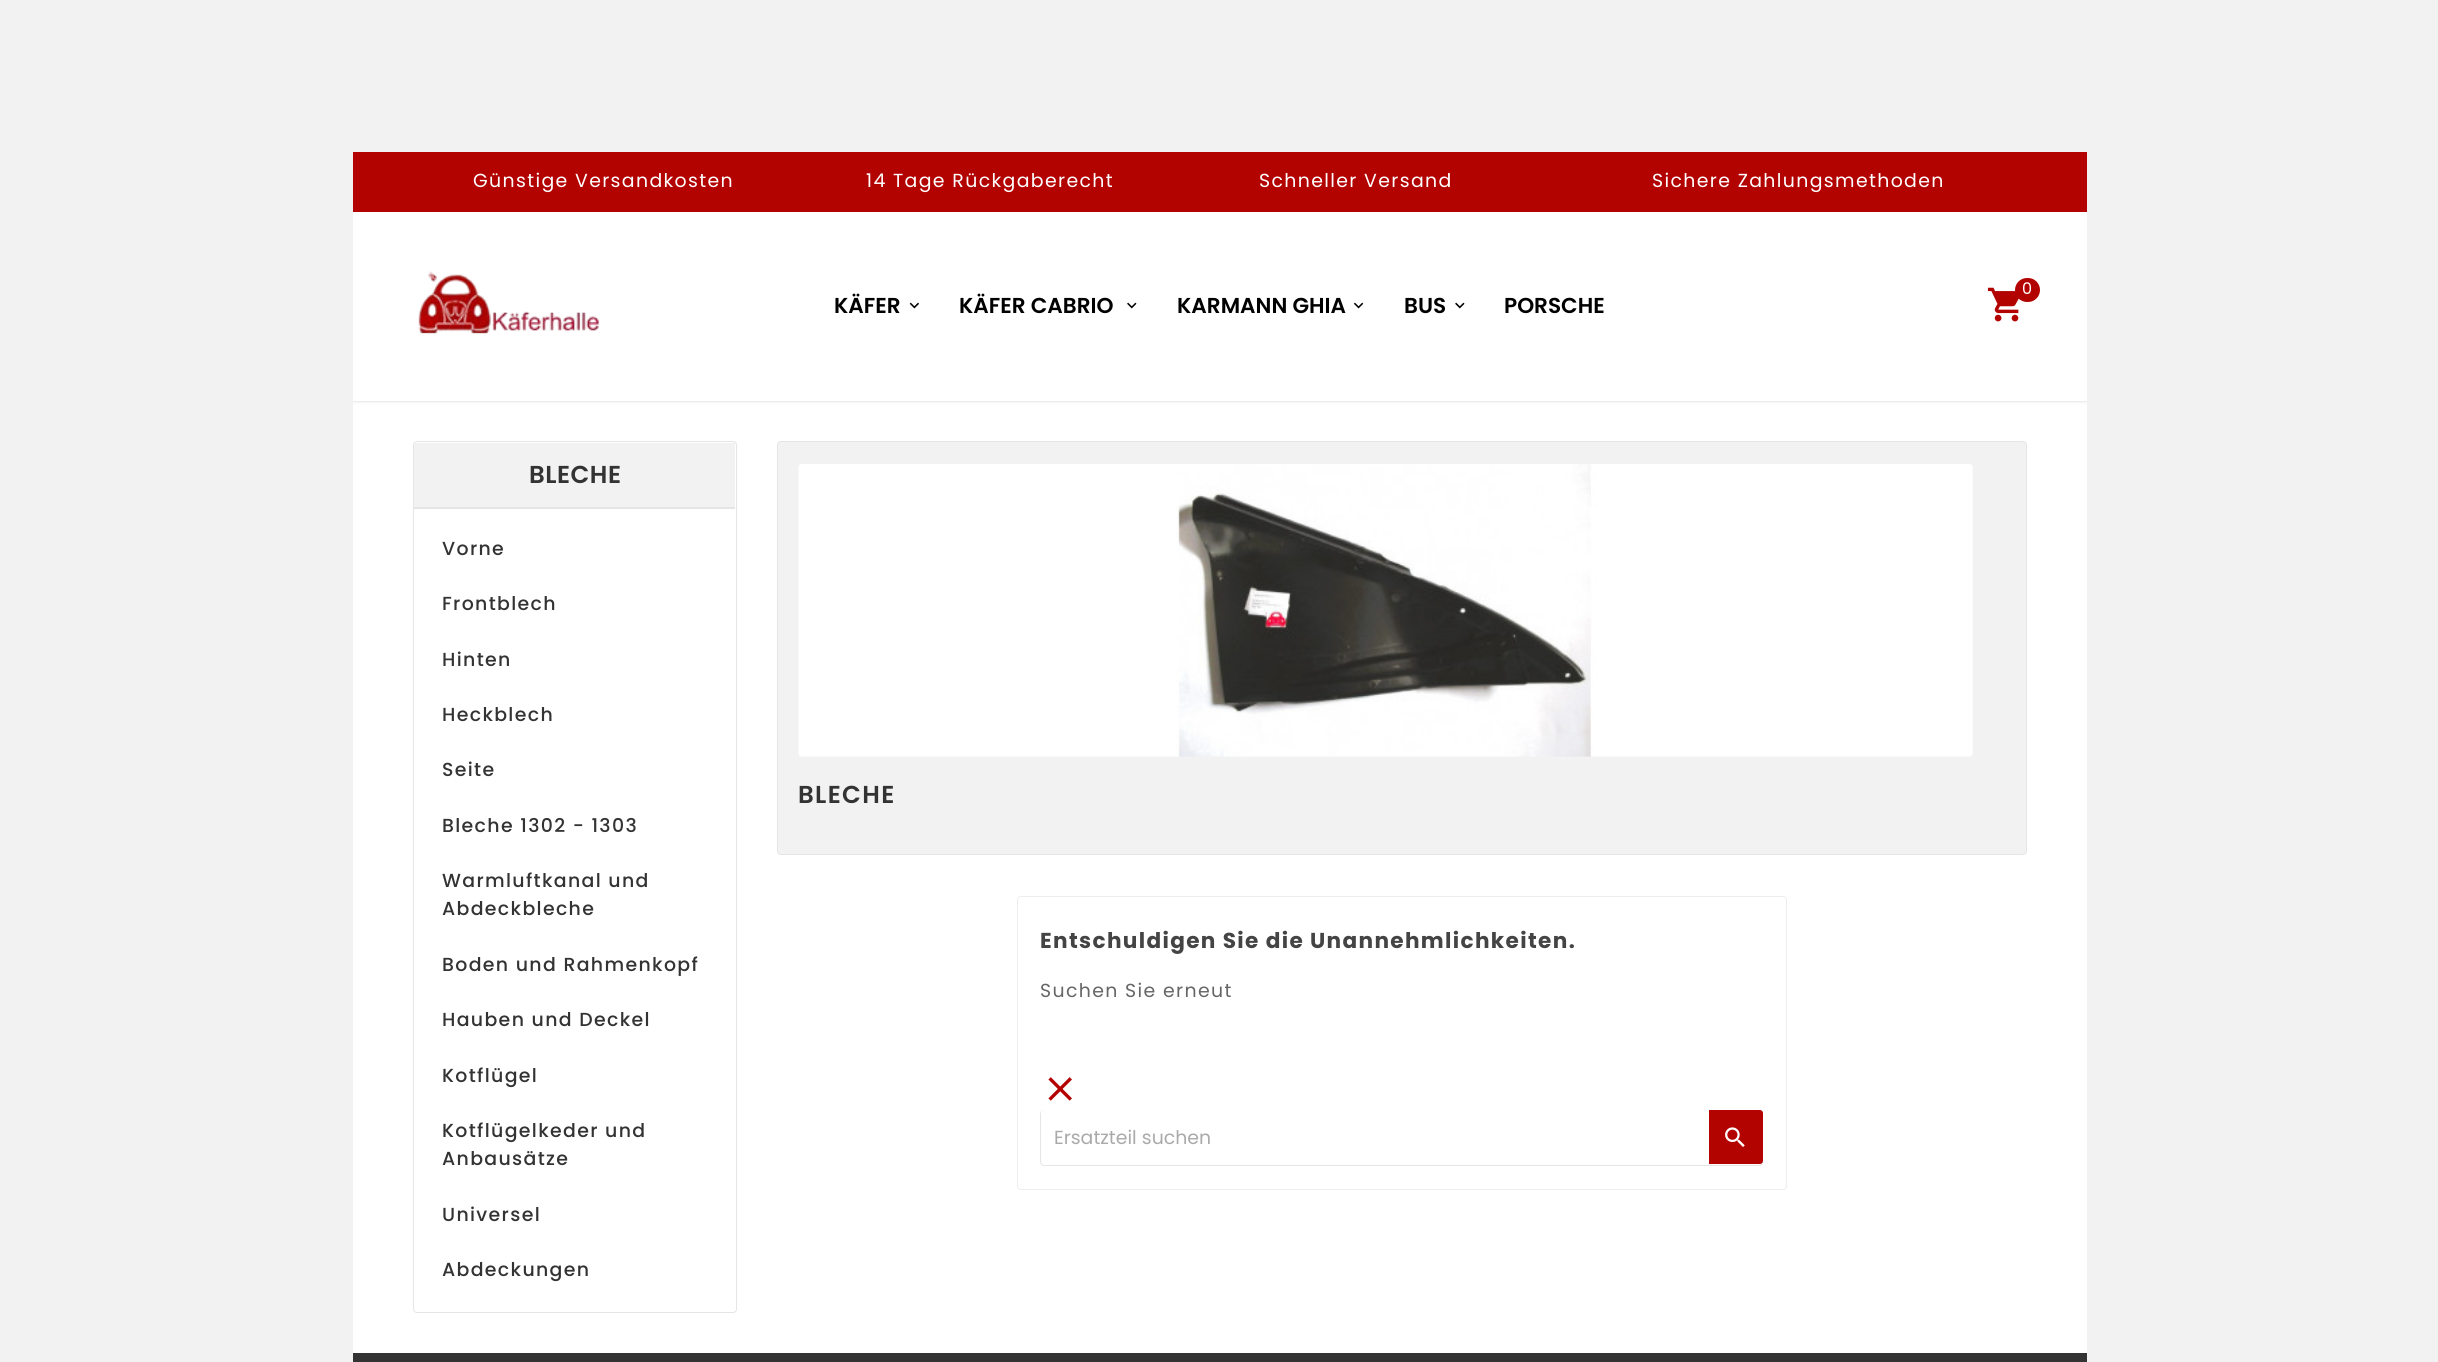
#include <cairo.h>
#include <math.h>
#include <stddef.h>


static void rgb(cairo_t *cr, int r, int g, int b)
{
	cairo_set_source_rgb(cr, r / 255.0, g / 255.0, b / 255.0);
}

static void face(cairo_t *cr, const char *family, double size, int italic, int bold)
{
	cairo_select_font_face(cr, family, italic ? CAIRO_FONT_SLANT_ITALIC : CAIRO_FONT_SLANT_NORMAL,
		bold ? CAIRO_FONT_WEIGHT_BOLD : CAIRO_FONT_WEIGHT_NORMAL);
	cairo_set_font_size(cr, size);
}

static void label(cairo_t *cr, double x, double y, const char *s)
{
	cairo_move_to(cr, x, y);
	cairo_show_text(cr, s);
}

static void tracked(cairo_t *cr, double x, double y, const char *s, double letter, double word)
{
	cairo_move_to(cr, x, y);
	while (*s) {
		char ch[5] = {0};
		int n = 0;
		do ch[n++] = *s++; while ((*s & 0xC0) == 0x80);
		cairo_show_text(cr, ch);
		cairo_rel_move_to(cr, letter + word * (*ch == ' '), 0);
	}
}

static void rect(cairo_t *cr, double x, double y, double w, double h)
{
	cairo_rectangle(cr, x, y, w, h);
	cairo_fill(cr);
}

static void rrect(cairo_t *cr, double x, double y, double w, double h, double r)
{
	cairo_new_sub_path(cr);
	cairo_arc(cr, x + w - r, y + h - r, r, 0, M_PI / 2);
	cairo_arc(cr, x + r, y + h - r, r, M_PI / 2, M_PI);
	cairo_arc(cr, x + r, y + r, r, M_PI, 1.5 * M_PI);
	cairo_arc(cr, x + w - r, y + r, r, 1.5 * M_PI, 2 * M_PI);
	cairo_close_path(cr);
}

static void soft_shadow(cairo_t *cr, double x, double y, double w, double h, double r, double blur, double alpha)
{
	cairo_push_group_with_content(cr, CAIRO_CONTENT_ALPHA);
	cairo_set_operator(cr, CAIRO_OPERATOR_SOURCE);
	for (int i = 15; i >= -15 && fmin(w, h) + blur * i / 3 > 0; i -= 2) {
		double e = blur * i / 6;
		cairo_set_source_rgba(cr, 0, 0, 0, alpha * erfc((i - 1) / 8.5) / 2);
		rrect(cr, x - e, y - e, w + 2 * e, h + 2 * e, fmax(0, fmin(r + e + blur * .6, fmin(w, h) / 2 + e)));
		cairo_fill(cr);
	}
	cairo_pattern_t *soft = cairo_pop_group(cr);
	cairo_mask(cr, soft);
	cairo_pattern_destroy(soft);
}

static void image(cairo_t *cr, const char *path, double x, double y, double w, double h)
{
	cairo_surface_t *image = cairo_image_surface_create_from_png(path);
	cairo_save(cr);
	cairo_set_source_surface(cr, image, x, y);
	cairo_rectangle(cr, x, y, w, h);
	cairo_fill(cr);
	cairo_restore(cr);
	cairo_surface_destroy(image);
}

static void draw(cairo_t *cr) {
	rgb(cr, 242, 242, 242);
	cairo_paint(cr);
	rgb(cr, 255, 255, 255);
	rect(cr, 353, 401, 1734, 952);
	cairo_save(cr);
	cairo_rectangle(cr, 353, 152, 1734, 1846);
	cairo_clip(cr);
	rgb(cr, 184, 184, 184);
	soft_shadow(cr, 353, 152, 1734, 249, 0, 1.5, 0.7);
	cairo_restore(cr);
	rect(cr, 353, 212, 1734, 189);
	rgb(cr, 179, 3, 1);
	rect(cr, 353, 152, 1734, 60);
	face(cr, "Poppins", 18.9, 0, 0);
	rgb(cr, 255, 255, 255);
	tracked(cr, 473, 187, "Günstige Versandkosten", 1.35, 0);
	tracked(cr, 866, 187, "14 Tage Rückgaberecht", 1.35, 0);
	tracked(cr, 1259, 187, "Schneller Versand", 1.35, 0);
	tracked(cr, 1652, 187, "Sichere Zahlungsmethoden", 1.35, 0);
	image(cr, "image0.png", 418, 271, 182, 63);
	image(cr, "image1.png", 1987, 287, 32, 35);
	rgb(cr, 179, 3, 1);
	rrect(cr, 2015, 278, 25, 24, 12);
	cairo_fill(cr);
	face(cr, "Poppins", 16, 0, 0);
	rgb(cr, 255, 255, 255);
	label(cr, 2022, 294, "0");
	face(cr, "Poppins SemiBold", 21.6, 0, 0);
	rgb(cr, 0, 0, 0);
	label(cr, 834, 313, "KÄFER");
	image(cr, "image2.png", 909, 302, 10, 7);
	label(cr, 959, 313, "KÄFER CABRIO");
	image(cr, "image3.png", 1127, 302, 10, 7);
	label(cr, 1177, 313, "KARMANN GHIA");
	image(cr, "image4.png", 1353, 302, 11, 7);
	label(cr, 1404, 313, "BUS");
	image(cr, "image5.png", 1455, 302, 10, 7);
	label(cr, 1504, 313, "PORSCHE");
	rrect(cr, 413.5, 441.5, 323, 871, 3.5);
	rgb(cr, 229, 229, 229);
	cairo_set_line_width(cr, 1);
	cairo_stroke(cr);
	rgb(cr, 242, 242, 242);
	rect(cr, 414, 443, 321, 64);
	face(cr, "Poppins SemiBold", 24.5, 0, 0);
	rgb(cr, 51, 51, 51);
	tracked(cr, 529, 483, "BLECHE", 0.5, 0);
	rgb(cr, 229, 229, 229);
	rect(cr, 414, 507, 321, 2);
	face(cr, "Poppins Medium", 18.9, 0, 0);
	rgb(cr, 51, 51, 51);
	tracked(cr, 442, 555, "Vorne", 1.35, 0);
	tracked(cr, 442, 610, "Frontblech", 1.35, 0);
	tracked(cr, 442, 666, "Hinten", 1.35, 0);
	tracked(cr, 442, 721, "Heckblech", 1.35, 0);
	tracked(cr, 442, 776, "Seite", 1.35, 0);
	tracked(cr, 442, 832, "Bleche 1302 - 1303", 1.35, 0);
	tracked(cr, 442, 887, "Warmluftkanal und", 1.35, 0);
	tracked(cr, 442, 915, "Abdeckbleche", 1.35, 0);
	tracked(cr, 442, 971, "Boden und Rahmenkopf", 1.35, 0);
	tracked(cr, 442, 1026, "Hauben und Deckel", 1.35, 0);
	tracked(cr, 442, 1082, "Kotflügel", 1.35, 0);
	tracked(cr, 442, 1137, "Kotflügelkeder und", 1.35, 0);
	tracked(cr, 442, 1165, "Anbausätze", 1.35, 0);
	tracked(cr, 442, 1221, "Universel", 1.35, 0);
	tracked(cr, 442, 1276, "Abdeckungen", 1.35, 0);
	rgb(cr, 242, 242, 242);
	rrect(cr, 777.5, 441.5, 1249, 413, 3.5);
	cairo_fill_preserve(cr);
	rgb(cr, 229, 229, 229);
	cairo_stroke(cr);
	image(cr, "image6.png", 798, 464, 1175, 293);
	face(cr, "Poppins SemiBold", 24.5, 0, 0);
	rgb(cr, 51, 51, 51);
	tracked(cr, 798, 803, "BLECHE", 1.35, 0);
	rrect(cr, 1017.5, 896.5, 769, 293, 3.5);
	rgb(cr, 237, 237, 237);
	cairo_stroke(cr);
	face(cr, "Poppins", 21.6, 0, 1);
	rgb(cr, 68, 68, 68);
	tracked(cr, 1040, 948, "Entschuldigen Sie die Unannehmlichkeiten.", 1.35, 0);
	face(cr, "Poppins", 18.9, 0, 0);
	rgb(cr, 102, 102, 102);
	tracked(cr, 1040, 997, "Suchen Sie erneut", 1.35, 0);
	image(cr, "image7.png", 1048, 1077, 24, 24);
	rrect(cr, 1040.5, 1110.5, 722, 55, 3.5);
	rgb(cr, 229, 229, 229);
	cairo_stroke(cr);
	rgb(cr, 255, 255, 255);
	cairo_new_path(cr);
	cairo_move_to(cr, 1044, 1110);
	cairo_line_to(cr, 1709, 1110);
	cairo_line_to(cr, 1709, 1164);
	cairo_line_to(cr, 1044, 1164);
	cairo_curve_to(cr, 1042.5, 1164, 1041, 1162.5, 1041, 1161);
	cairo_line_to(cr, 1041, 1113);
	cairo_curve_to(cr, 1041, 1111.5, 1042.5, 1110, 1044, 1110);
	cairo_close_path(cr);
	cairo_fill(cr);
	rgb(cr, 170, 170, 170);
	label(cr, 1054, 1144, "Ersatzteil suchen");
	rgb(cr, 179, 3, 1);
	cairo_new_path(cr);
	cairo_move_to(cr, 1709, 1110);
	cairo_line_to(cr, 1760, 1110);
	cairo_curve_to(cr, 1761.5, 1110, 1763, 1111.5, 1763, 1113);
	cairo_line_to(cr, 1763, 1161);
	cairo_curve_to(cr, 1763, 1162.5, 1761.5, 1164, 1760, 1164);
	cairo_line_to(cr, 1709, 1164);
	cairo_close_path(cr);
	cairo_fill(cr);
	image(cr, "image8.png", 1725, 1127, 20, 20);
	rgb(cr, 51, 51, 51);
	rect(cr, 353, 1353, 1734, 9);
}

int main(void) {
	cairo_surface_t *surface = cairo_image_surface_create(CAIRO_FORMAT_RGB24, 2438, 1362);
	cairo_t *cr = cairo_create(surface);
	cairo_font_options_t *options = cairo_font_options_create();
	cairo_font_options_set_hint_metrics(options, CAIRO_HINT_METRICS_OFF);
	cairo_font_options_set_hint_style(options, CAIRO_HINT_STYLE_NONE);
	cairo_set_font_options(cr, options);
	cairo_set_miter_limit(cr, 4);
	draw(cr);
	cairo_surface_write_to_png(surface, "render.png");
	cairo_font_options_destroy(options);
	cairo_destroy(cr);
	cairo_surface_destroy(surface);
	return 0;
}
